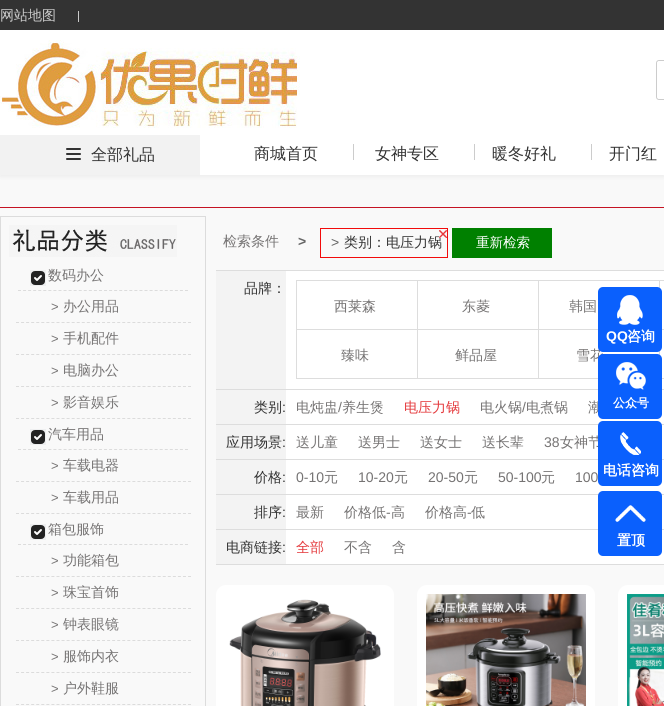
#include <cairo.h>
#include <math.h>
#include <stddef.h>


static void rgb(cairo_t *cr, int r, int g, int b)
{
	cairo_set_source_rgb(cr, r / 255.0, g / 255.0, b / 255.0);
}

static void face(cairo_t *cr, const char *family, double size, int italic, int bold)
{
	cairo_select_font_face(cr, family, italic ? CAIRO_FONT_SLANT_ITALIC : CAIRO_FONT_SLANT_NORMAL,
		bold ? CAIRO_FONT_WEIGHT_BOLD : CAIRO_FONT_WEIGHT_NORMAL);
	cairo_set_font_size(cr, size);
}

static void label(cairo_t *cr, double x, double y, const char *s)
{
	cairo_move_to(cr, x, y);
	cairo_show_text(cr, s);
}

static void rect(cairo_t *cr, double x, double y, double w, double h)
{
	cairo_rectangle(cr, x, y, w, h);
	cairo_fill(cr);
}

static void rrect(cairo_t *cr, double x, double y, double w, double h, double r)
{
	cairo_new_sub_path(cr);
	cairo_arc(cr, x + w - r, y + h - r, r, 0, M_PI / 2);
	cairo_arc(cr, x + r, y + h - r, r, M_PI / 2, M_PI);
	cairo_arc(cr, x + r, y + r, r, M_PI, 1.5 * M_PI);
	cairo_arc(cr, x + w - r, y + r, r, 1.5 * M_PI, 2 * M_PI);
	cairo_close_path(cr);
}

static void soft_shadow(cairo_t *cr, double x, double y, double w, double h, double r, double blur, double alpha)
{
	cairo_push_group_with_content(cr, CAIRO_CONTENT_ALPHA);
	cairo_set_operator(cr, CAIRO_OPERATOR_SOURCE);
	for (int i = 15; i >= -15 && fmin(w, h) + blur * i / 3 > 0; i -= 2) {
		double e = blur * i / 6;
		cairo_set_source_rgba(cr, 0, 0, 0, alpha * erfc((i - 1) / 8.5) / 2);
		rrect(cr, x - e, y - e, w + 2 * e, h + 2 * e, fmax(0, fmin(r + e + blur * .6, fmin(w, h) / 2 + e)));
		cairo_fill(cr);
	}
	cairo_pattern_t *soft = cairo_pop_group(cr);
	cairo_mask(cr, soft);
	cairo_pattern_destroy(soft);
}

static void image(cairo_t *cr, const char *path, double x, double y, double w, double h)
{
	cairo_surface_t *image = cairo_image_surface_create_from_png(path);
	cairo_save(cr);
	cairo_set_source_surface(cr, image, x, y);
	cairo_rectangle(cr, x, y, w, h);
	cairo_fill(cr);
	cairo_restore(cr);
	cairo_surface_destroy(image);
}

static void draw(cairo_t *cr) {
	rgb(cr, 249, 249, 249);
	cairo_paint(cr);
	rgb(cr, 51, 51, 51);
	rect(cr, 0, 0, 664, 30);
	face(cr, "WenQuanYi Zen Hei Medium", 14, 0, 0);
	rgb(cr, 204, 204, 204);
	label(cr, 0, 20, "网站地图");
	rgb(cr, 203, 203, 203);
	rect(cr, 78, 11, 1, 11);
	rgb(cr, 0, 0, 0);
	soft_shadow(cr, 0, 32, 664, 145, 0, 2, 0.05);
	rgb(cr, 255, 255, 255);
	rect(cr, 0, 30, 664, 145);
	image(cr, "image0.png", 0, 40, 300, 88);
	rrect(cr, 656.5, 60.5, 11, 39, 2.5);
	rgb(cr, 204, 204, 204);
	cairo_set_line_width(cr, 1);
	cairo_stroke(cr);
	rgb(cr, 255, 255, 255);
	rrect(cr, 657, 61, 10, 38, 3);
	cairo_fill(cr);
	rgb(cr, 242, 242, 242);
	rect(cr, 0, 135, 200, 40);
	image(cr, "image1.png", 66, 148, 15, 12);
	face(cr, "WenQuanYi Zen Hei Medium", 16, 0, 0);
	rgb(cr, 51, 51, 51);
	label(cr, 91, 160, "全部礼品");
	rgb(cr, 204, 204, 204);
	rect(cr, 353, 144, 1, 16);
	rgb(cr, 51, 51, 51);
	label(cr, 254, 159, "商城首页");
	rgb(cr, 204, 204, 204);
	rect(cr, 474, 144, 1, 16);
	rgb(cr, 51, 51, 51);
	label(cr, 375, 159, "女神专区");
	rgb(cr, 204, 204, 204);
	rect(cr, 591, 144, 1, 16);
	rgb(cr, 51, 51, 51);
	label(cr, 492, 159, "暖冬好礼");
	label(cr, 609, 159, "开门红");
	rgb(cr, 197, 19, 35);
	rect(cr, 0, 207, 664, 1);
	cairo_rectangle(cr, 0.5, 216.5, 205, 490);
	rgb(cr, 220, 220, 220);
	cairo_stroke(cr);
	image(cr, "image2.png", 9, 225, 168, 32);
	image(cr, "image3.png", 30, 270, 16, 16);
	cairo_new_path(cr);
	cairo_move_to(cr, 18, 290.5);
	cairo_line_to(cr, 188, 290.5);
	cairo_set_dash(cr, (double[]){3, 2.06}, 2, 0);
	cairo_stroke(cr);
	face(cr, "WenQuanYi Zen Hei Medium", 14, 0, 0);
	rgb(cr, 117, 115, 115);
	label(cr, 48, 280, "数码办公");
	cairo_new_path(cr);
	cairo_move_to(cr, 16, 322.5);
	cairo_line_to(cr, 191, 322.5);
	rgb(cr, 220, 220, 220);
	cairo_stroke(cr);
	face(cr, "Liberation Sans", 13, 0, 0);
	rgb(cr, 117, 115, 115);
	label(cr, 51, 311, ">");
	face(cr, "WenQuanYi Zen Hei Medium", 14, 0, 0);
	label(cr, 63, 311, "办公用品");
	cairo_new_path(cr);
	cairo_move_to(cr, 16, 354.5);
	cairo_line_to(cr, 191, 354.5);
	rgb(cr, 220, 220, 220);
	cairo_stroke(cr);
	face(cr, "Liberation Sans", 13, 0, 0);
	rgb(cr, 117, 115, 115);
	label(cr, 51, 343, ">");
	face(cr, "WenQuanYi Zen Hei Medium", 14, 0, 0);
	label(cr, 63, 343, "手机配件");
	cairo_new_path(cr);
	cairo_move_to(cr, 16, 386.5);
	cairo_line_to(cr, 191, 386.5);
	rgb(cr, 220, 220, 220);
	cairo_stroke(cr);
	face(cr, "Liberation Sans", 13, 0, 0);
	rgb(cr, 117, 115, 115);
	label(cr, 51, 375, ">");
	face(cr, "WenQuanYi Zen Hei Medium", 14, 0, 0);
	label(cr, 63, 375, "电脑办公");
	cairo_new_path(cr);
	cairo_move_to(cr, 16, 418.5);
	cairo_line_to(cr, 191, 418.5);
	rgb(cr, 220, 220, 220);
	cairo_stroke(cr);
	face(cr, "Liberation Sans", 13, 0, 0);
	rgb(cr, 117, 115, 115);
	label(cr, 51, 407, ">");
	face(cr, "WenQuanYi Zen Hei Medium", 14, 0, 0);
	label(cr, 63, 407, "影音娱乐");
	image(cr, "image3.png", 30, 429, 16, 16);
	cairo_new_path(cr);
	cairo_move_to(cr, 18, 449.5);
	cairo_line_to(cr, 188, 449.5);
	rgb(cr, 220, 220, 220);
	cairo_stroke(cr);
	rgb(cr, 117, 115, 115);
	label(cr, 48, 439, "汽车用品");
	cairo_new_path(cr);
	cairo_move_to(cr, 16, 481.5);
	cairo_line_to(cr, 191, 481.5);
	rgb(cr, 220, 220, 220);
	cairo_stroke(cr);
	face(cr, "Liberation Sans", 13, 0, 0);
	rgb(cr, 117, 115, 115);
	label(cr, 51, 470, ">");
	face(cr, "WenQuanYi Zen Hei Medium", 14, 0, 0);
	label(cr, 63, 470, "车载电器");
	cairo_new_path(cr);
	cairo_move_to(cr, 16, 513.5);
	cairo_line_to(cr, 191, 513.5);
	rgb(cr, 220, 220, 220);
	cairo_stroke(cr);
	face(cr, "Liberation Sans", 13, 0, 0);
	rgb(cr, 117, 115, 115);
	label(cr, 51, 502, ">");
	face(cr, "WenQuanYi Zen Hei Medium", 14, 0, 0);
	label(cr, 63, 502, "车载用品");
	image(cr, "image3.png", 30, 524, 16, 16);
	cairo_new_path(cr);
	cairo_move_to(cr, 18, 544.5);
	cairo_line_to(cr, 188, 544.5);
	rgb(cr, 220, 220, 220);
	cairo_stroke(cr);
	rgb(cr, 117, 115, 115);
	label(cr, 48, 534, "箱包服饰");
	cairo_new_path(cr);
	cairo_move_to(cr, 16, 576.5);
	cairo_line_to(cr, 191, 576.5);
	rgb(cr, 220, 220, 220);
	cairo_stroke(cr);
	face(cr, "Liberation Sans", 13, 0, 0);
	rgb(cr, 117, 115, 115);
	label(cr, 51, 565, ">");
	face(cr, "WenQuanYi Zen Hei Medium", 14, 0, 0);
	label(cr, 63, 565, "功能箱包");
	cairo_new_path(cr);
	cairo_move_to(cr, 16, 608.5);
	cairo_line_to(cr, 191, 608.5);
	rgb(cr, 220, 220, 220);
	cairo_stroke(cr);
	face(cr, "Liberation Sans", 13, 0, 0);
	rgb(cr, 117, 115, 115);
	label(cr, 51, 597, ">");
	face(cr, "WenQuanYi Zen Hei Medium", 14, 0, 0);
	label(cr, 63, 597, "珠宝首饰");
	cairo_new_path(cr);
	cairo_move_to(cr, 16, 640.5);
	cairo_line_to(cr, 191, 640.5);
	rgb(cr, 220, 220, 220);
	cairo_stroke(cr);
	face(cr, "Liberation Sans", 13, 0, 0);
	rgb(cr, 117, 115, 115);
	label(cr, 51, 629, ">");
	face(cr, "WenQuanYi Zen Hei Medium", 14, 0, 0);
	label(cr, 63, 629, "钟表眼镜");
	cairo_new_path(cr);
	cairo_move_to(cr, 16, 672.5);
	cairo_line_to(cr, 191, 672.5);
	rgb(cr, 220, 220, 220);
	cairo_stroke(cr);
	face(cr, "Liberation Sans", 13, 0, 0);
	rgb(cr, 117, 115, 115);
	label(cr, 51, 661, ">");
	face(cr, "WenQuanYi Zen Hei Medium", 14, 0, 0);
	label(cr, 63, 661, "服饰内衣");
	cairo_new_path(cr);
	cairo_move_to(cr, 16, 704.5);
	cairo_line_to(cr, 191, 704.5);
	rgb(cr, 220, 220, 220);
	cairo_stroke(cr);
	face(cr, "Liberation Sans", 13, 0, 0);
	rgb(cr, 117, 115, 115);
	label(cr, 51, 693, ">");
	face(cr, "WenQuanYi Zen Hei Medium", 14, 0, 0);
	label(cr, 63, 693, "户外鞋服");
	label(cr, 223, 246, "检索条件");
	face(cr, "Liberation Sans", 14, 0, 1);
	rgb(cr, 102, 102, 102);
	label(cr, 298, 246, ">");
	cairo_rectangle(cr, 320.5, 228.5, 127, 29);
	rgb(cr, 242, 11, 11);
	cairo_set_dash(cr, NULL, 0, 0);
	cairo_stroke(cr);
	face(cr, "WenQuanYi Zen Hei Medium", 14, 0, 0);
	rgb(cr, 51, 51, 51);
	label(cr, 344, 247, "类别：电压力锅");
	image(cr, "image4.png", 439, 230, 8, 8);
	face(cr, "Liberation Sans", 14, 0, 0);
	rgb(cr, 102, 102, 102);
	label(cr, 331, 247, ">");
	rgb(cr, 0, 128, 0);
	rect(cr, 452, 228, 100, 30);
	face(cr, "WenQuanYi Zen Hei Medium", 13.5, 0, 0);
	rgb(cr, 255, 255, 255);
	label(cr, 476, 247, "重新检索");
	rgb(cr, 221, 221, 221);
	rect(cr, 216, 270, 448, 1);
	rgb(cr, 243, 243, 243);
	rect(cr, 216, 271, 70, 118);
	rgb(cr, 221, 221, 221);
	rect(cr, 216, 389, 448, 1);
	face(cr, "WenQuanYi Zen Hei Medium", 14, 0, 0);
	rgb(cr, 51, 51, 51);
	label(cr, 244, 293, "品牌：");
	rgb(cr, 255, 255, 255);
	rect(cr, 286, 271, 378, 118);
	cairo_rectangle(cr, 296.5, 280.5, 121, 49);
	rgb(cr, 221, 221, 221);
	cairo_stroke(cr);
	rgb(cr, 117, 115, 115);
	label(cr, 334, 311, "西莱森");
	cairo_rectangle(cr, 417.5, 280.5, 121, 49);
	rgb(cr, 221, 221, 221);
	cairo_stroke(cr);
	rgb(cr, 117, 115, 115);
	label(cr, 462, 311, "东菱");
	cairo_rectangle(cr, 538.5, 280.5, 121, 49);
	rgb(cr, 221, 221, 221);
	cairo_stroke(cr);
	rgb(cr, 117, 115, 115);
	label(cr, 569, 311, "韩国");
	cairo_rectangle(cr, 659.5, 280.5, 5, 49);
	rgb(cr, 221, 221, 221);
	cairo_stroke(cr);
	cairo_rectangle(cr, 296.5, 329.5, 121, 49);
	cairo_stroke(cr);
	rgb(cr, 117, 115, 115);
	label(cr, 341, 360, "臻味");
	cairo_rectangle(cr, 417.5, 329.5, 121, 49);
	rgb(cr, 221, 221, 221);
	cairo_stroke(cr);
	rgb(cr, 117, 115, 115);
	label(cr, 455, 360, "鲜品屋");
	cairo_rectangle(cr, 538.5, 329.5, 121, 49);
	rgb(cr, 221, 221, 221);
	cairo_stroke(cr);
	rgb(cr, 117, 115, 115);
	label(cr, 576, 360, "雪花");
	rgb(cr, 255, 255, 255);
	rect(cr, 660, 329, 4, 1);
	cairo_rectangle(cr, 659.5, 329.5, 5, 49);
	rgb(cr, 221, 221, 221);
	cairo_stroke(cr);
	cairo_rectangle(cr, 659.5, 378.5, 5, 49);
	cairo_stroke(cr);
	rgb(cr, 243, 243, 243);
	rect(cr, 216, 390, 70, 34);
	rgb(cr, 221, 221, 221);
	rect(cr, 216, 424, 448, 1);
	rgb(cr, 51, 51, 51);
	label(cr, 254, 412, "类别");
	face(cr, "Liberation Sans", 14, 0, 0);
	label(cr, 282, 412, ":");
	rgb(cr, 255, 255, 255);
	rect(cr, 286, 390, 378, 34);
	face(cr, "WenQuanYi Zen Hei Medium", 14, 0, 0);
	rgb(cr, 117, 115, 115);
	label(cr, 296, 412, "电炖盅");
	face(cr, "Liberation Sans", 14, 0, 0);
	label(cr, 338, 412, "/");
	face(cr, "WenQuanYi Zen Hei Medium", 14, 0, 0);
	label(cr, 342, 412, "养生煲");
	rgb(cr, 228, 57, 60);
	label(cr, 404, 412, "电压力锅");
	rgb(cr, 117, 115, 115);
	label(cr, 480, 412, "电火锅");
	face(cr, "Liberation Sans", 14, 0, 0);
	label(cr, 522, 412, "/");
	face(cr, "WenQuanYi Zen Hei Medium", 14, 0, 0);
	label(cr, 526, 412, "电煮锅");
	label(cr, 588, 412, "潮");
	rgb(cr, 243, 243, 243);
	rect(cr, 216, 425, 70, 34);
	rgb(cr, 221, 221, 221);
	rect(cr, 216, 459, 448, 1);
	rgb(cr, 51, 51, 51);
	label(cr, 226, 447, "应用场景");
	face(cr, "Liberation Sans", 14, 0, 0);
	label(cr, 282, 447, ":");
	rgb(cr, 255, 255, 255);
	rect(cr, 286, 425, 378, 34);
	face(cr, "WenQuanYi Zen Hei Medium", 14, 0, 0);
	rgb(cr, 117, 115, 115);
	label(cr, 296, 447, "送儿童");
	label(cr, 358, 447, "送男士");
	label(cr, 420, 447, "送女士");
	label(cr, 482, 447, "送长辈");
	face(cr, "Liberation Sans", 14, 0, 0);
	label(cr, 544, 447, "38");
	face(cr, "WenQuanYi Zen Hei Medium", 14, 0, 0);
	label(cr, 560, 447, "女神节");
	rgb(cr, 243, 243, 243);
	rect(cr, 216, 460, 70, 34);
	rgb(cr, 221, 221, 221);
	rect(cr, 216, 494, 448, 1);
	rgb(cr, 51, 51, 51);
	label(cr, 254, 482, "价格");
	face(cr, "Liberation Sans", 14, 0, 0);
	label(cr, 282, 482, ":");
	rgb(cr, 255, 255, 255);
	rect(cr, 286, 460, 378, 34);
	rgb(cr, 117, 115, 115);
	label(cr, 296, 482, "0-10");
	face(cr, "WenQuanYi Zen Hei Medium", 14, 0, 0);
	label(cr, 324, 482, "元");
	face(cr, "Liberation Sans", 14, 0, 0);
	label(cr, 358, 482, "10-20");
	face(cr, "WenQuanYi Zen Hei Medium", 14, 0, 0);
	label(cr, 394, 482, "元");
	face(cr, "Liberation Sans", 14, 0, 0);
	label(cr, 428, 482, "20-50");
	face(cr, "WenQuanYi Zen Hei Medium", 14, 0, 0);
	label(cr, 464, 482, "元");
	face(cr, "Liberation Sans", 14, 0, 0);
	label(cr, 498, 482, "50-100");
	face(cr, "WenQuanYi Zen Hei Medium", 14, 0, 0);
	label(cr, 541, 482, "元");
	face(cr, "Liberation Sans", 14, 0, 0);
	label(cr, 575, 482, "100");
	rgb(cr, 243, 243, 243);
	rect(cr, 216, 495, 70, 34);
	rgb(cr, 221, 221, 221);
	rect(cr, 216, 529, 448, 1);
	face(cr, "WenQuanYi Zen Hei Medium", 14, 0, 0);
	rgb(cr, 51, 51, 51);
	label(cr, 254, 517, "排序");
	face(cr, "Liberation Sans", 14, 0, 0);
	label(cr, 282, 517, ":");
	rgb(cr, 255, 255, 255);
	rect(cr, 286, 495, 378, 34);
	face(cr, "WenQuanYi Zen Hei Medium", 14, 0, 0);
	rgb(cr, 117, 115, 115);
	label(cr, 296, 517, "最新");
	label(cr, 344, 517, "价格低");
	face(cr, "Liberation Sans", 14, 0, 0);
	label(cr, 386, 517, "-");
	face(cr, "WenQuanYi Zen Hei Medium", 14, 0, 0);
	label(cr, 391, 517, "高");
	label(cr, 425, 517, "价格高");
	face(cr, "Liberation Sans", 14, 0, 0);
	label(cr, 467, 517, "-");
	face(cr, "WenQuanYi Zen Hei Medium", 14, 0, 0);
	label(cr, 471, 517, "低");
	rgb(cr, 243, 243, 243);
	rect(cr, 216, 530, 70, 34);
	rgb(cr, 221, 221, 221);
	rect(cr, 216, 564, 448, 1);
	rgb(cr, 51, 51, 51);
	label(cr, 226, 552, "电商链接");
	face(cr, "Liberation Sans", 14, 0, 0);
	label(cr, 282, 552, ":");
	rgb(cr, 255, 255, 255);
	rect(cr, 286, 530, 378, 34);
	face(cr, "WenQuanYi Zen Hei Medium", 14, 0, 0);
	rgb(cr, 228, 57, 60);
	label(cr, 296, 552, "全部");
	rgb(cr, 117, 115, 115);
	label(cr, 344, 552, "不含");
	label(cr, 392, 552, "含");
	rgb(cr, 255, 255, 255);
	rrect(cr, 216, 585, 178, 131, 10);
	cairo_fill(cr);
	image(cr, "image5.png", 229, 599, 152, 107);
	rrect(cr, 417, 585, 178, 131, 10);
	cairo_fill(cr);
	image(cr, "image6.png", 426, 594, 160, 112);
	rrect(cr, 618, 585, 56, 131, 10);
	cairo_fill(cr);
	image(cr, "image7.png", 627, 594, 37, 112);
	rgb(cr, 10, 96, 253);
	rrect(cr, 598, 287, 64, 65, 5);
	cairo_fill(cr);
	image(cr, "image8.png", 617, 295, 26, 30);
	face(cr, "Liberation Sans", 14, 0, 1);
	rgb(cr, 255, 255, 255);
	label(cr, 606, 341, "QQ");
	face(cr, "WenQuanYi Zen Hei", 14, 0, 1);
	label(cr, 627, 341, "咨询");
	rgb(cr, 10, 96, 253);
	rrect(cr, 598, 354, 64, 65, 5);
	cairo_fill(cr);
	image(cr, "image9.png", 616, 362, 30, 28);
	face(cr, "WenQuanYi Zen Hei", 12, 0, 1);
	rgb(cr, 255, 255, 255);
	label(cr, 613, 407, "公众号");
	rgb(cr, 10, 96, 253);
	rrect(cr, 598, 421, 64, 65, 5);
	cairo_fill(cr);
	image(cr, "image10.png", 620, 432, 21, 23);
	face(cr, "WenQuanYi Zen Hei", 14, 0, 1);
	rgb(cr, 255, 255, 255);
	label(cr, 603, 475, "电话咨询");
	rgb(cr, 10, 96, 253);
	rrect(cr, 598, 491, 64, 65, 5);
	cairo_fill(cr);
	image(cr, "image11.png", 615, 505, 31, 17);
	rgb(cr, 255, 255, 255);
	label(cr, 617, 545, "置顶");
}

int main(void) {
	cairo_surface_t *surface = cairo_image_surface_create(CAIRO_FORMAT_RGB24, 664, 706);
	cairo_t *cr = cairo_create(surface);
	cairo_font_options_t *options = cairo_font_options_create();
	cairo_font_options_set_hint_metrics(options, CAIRO_HINT_METRICS_OFF);
	cairo_font_options_set_hint_style(options, CAIRO_HINT_STYLE_NONE);
	cairo_set_font_options(cr, options);
	cairo_set_miter_limit(cr, 4);
	draw(cr);
	cairo_surface_write_to_png(surface, "render.png");
	cairo_font_options_destroy(options);
	cairo_destroy(cr);
	cairo_surface_destroy(surface);
	return 0;
}
